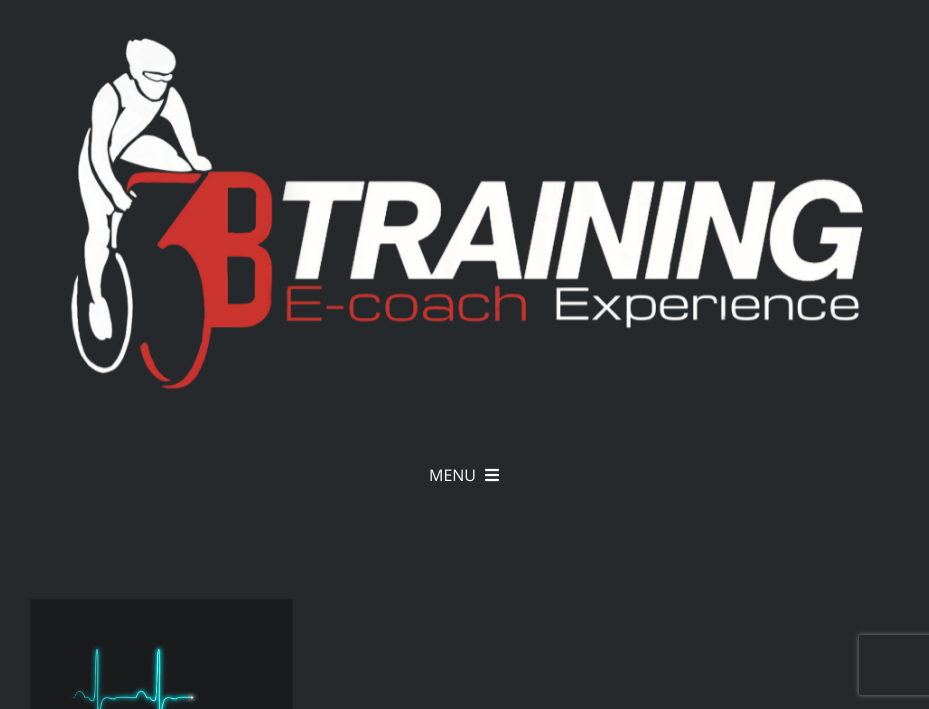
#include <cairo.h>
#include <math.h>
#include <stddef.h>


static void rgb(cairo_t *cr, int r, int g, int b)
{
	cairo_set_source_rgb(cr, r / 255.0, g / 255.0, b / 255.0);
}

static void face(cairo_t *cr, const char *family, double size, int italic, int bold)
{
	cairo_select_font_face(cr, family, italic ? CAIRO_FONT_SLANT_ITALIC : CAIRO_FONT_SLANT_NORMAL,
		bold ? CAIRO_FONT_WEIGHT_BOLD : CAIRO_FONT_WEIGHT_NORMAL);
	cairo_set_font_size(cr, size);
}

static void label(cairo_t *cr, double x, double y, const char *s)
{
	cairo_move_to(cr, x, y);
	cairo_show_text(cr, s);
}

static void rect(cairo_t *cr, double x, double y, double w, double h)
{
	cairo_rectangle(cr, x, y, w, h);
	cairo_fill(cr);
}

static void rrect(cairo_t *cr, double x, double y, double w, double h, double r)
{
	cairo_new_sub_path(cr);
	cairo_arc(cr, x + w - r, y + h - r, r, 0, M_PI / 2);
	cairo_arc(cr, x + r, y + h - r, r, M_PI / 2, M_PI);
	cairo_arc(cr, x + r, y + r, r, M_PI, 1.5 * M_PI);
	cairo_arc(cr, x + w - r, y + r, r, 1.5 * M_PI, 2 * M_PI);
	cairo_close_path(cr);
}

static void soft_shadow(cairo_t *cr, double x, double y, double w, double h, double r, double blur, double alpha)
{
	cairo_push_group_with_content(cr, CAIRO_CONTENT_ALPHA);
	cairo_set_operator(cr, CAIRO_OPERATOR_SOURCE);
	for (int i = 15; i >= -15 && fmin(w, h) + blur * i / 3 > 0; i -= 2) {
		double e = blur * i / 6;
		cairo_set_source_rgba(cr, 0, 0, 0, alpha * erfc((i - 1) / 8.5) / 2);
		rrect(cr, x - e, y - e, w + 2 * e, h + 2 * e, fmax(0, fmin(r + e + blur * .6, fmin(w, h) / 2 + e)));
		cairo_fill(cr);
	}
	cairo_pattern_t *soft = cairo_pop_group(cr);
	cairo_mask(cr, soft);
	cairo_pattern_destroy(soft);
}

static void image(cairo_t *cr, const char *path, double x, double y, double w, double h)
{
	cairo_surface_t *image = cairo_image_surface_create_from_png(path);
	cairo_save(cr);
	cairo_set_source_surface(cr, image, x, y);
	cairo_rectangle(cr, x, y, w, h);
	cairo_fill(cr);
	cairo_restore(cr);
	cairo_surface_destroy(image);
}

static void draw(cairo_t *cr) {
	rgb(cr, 37, 41, 43);
	cairo_paint(cr);
	image(cr, "image0.png", 70, 38, 793, 352);
	face(cr, "Open Sans", 16, 0, 0);
	rgb(cr, 255, 255, 255);
	label(cr, 429, 481, "MENU");
	image(cr, "image1.png", 485, 468, 14, 14);
	rgb(cr, 30, 33, 35);
	rect(cr, 30, 599, 263, 1);
	rect(cr, 292, 599, 1, 110);
	rect(cr, 30, 599, 1, 110);
	image(cr, "image2.png", 31, 600, 261, 109);
	cairo_save(cr);
	cairo_set_fill_rule(cr, CAIRO_FILL_RULE_EVEN_ODD);
	cairo_new_path(cr);
	cairo_move_to(cr, 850, 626);
	cairo_line_to(cr, 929, 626);
	cairo_line_to(cr, 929, 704);
	cairo_line_to(cr, 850, 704);
	cairo_close_path(cr);
	cairo_move_to(cr, 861, 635);
	cairo_line_to(cr, 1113, 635);
	cairo_curve_to(cr, 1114, 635, 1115, 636, 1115, 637);
	cairo_line_to(cr, 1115, 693);
	cairo_curve_to(cr, 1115, 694, 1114, 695, 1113, 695);
	cairo_line_to(cr, 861, 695);
	cairo_curve_to(cr, 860, 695, 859, 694, 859, 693);
	cairo_line_to(cr, 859, 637);
	cairo_curve_to(cr, 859, 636, 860, 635, 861, 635);
	cairo_close_path(cr);
	cairo_clip(cr);
	rgb(cr, 128, 128, 128);
	soft_shadow(cr, 859, 635, 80, 60, 2, 2.5, 1);
	cairo_restore(cr);
}

int main(void) {
	cairo_surface_t *surface = cairo_image_surface_create(CAIRO_FORMAT_RGB24, 929, 709);
	cairo_t *cr = cairo_create(surface);
	cairo_font_options_t *options = cairo_font_options_create();
	cairo_font_options_set_hint_metrics(options, CAIRO_HINT_METRICS_OFF);
	cairo_font_options_set_hint_style(options, CAIRO_HINT_STYLE_NONE);
	cairo_set_font_options(cr, options);
	cairo_set_miter_limit(cr, 4);
	draw(cr);
	cairo_surface_write_to_png(surface, "render.png");
	cairo_font_options_destroy(options);
	cairo_destroy(cr);
	cairo_surface_destroy(surface);
	return 0;
}
